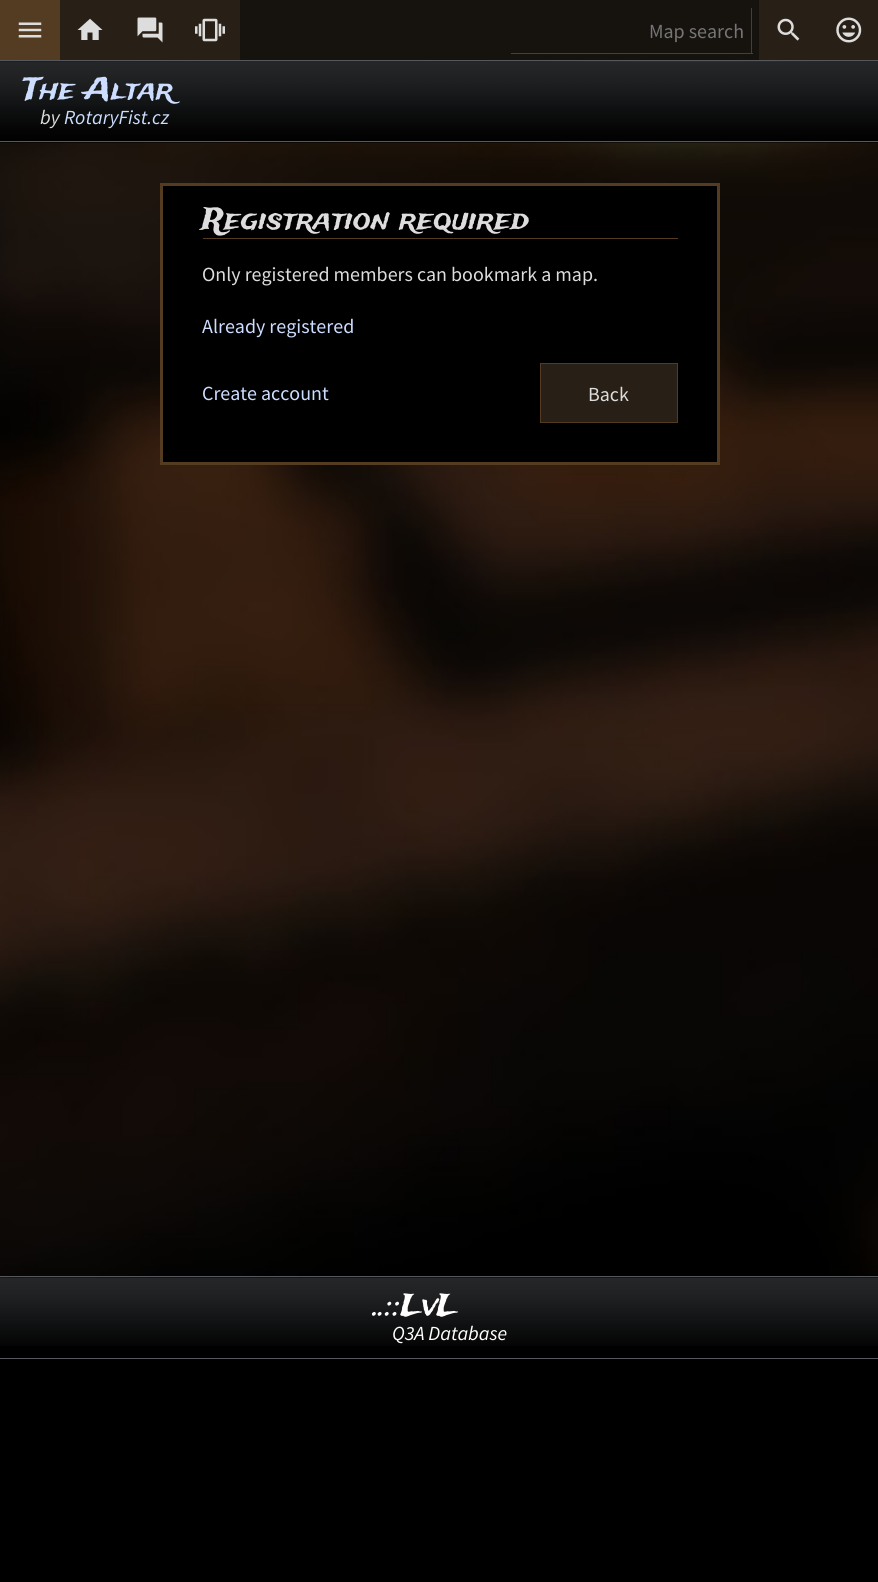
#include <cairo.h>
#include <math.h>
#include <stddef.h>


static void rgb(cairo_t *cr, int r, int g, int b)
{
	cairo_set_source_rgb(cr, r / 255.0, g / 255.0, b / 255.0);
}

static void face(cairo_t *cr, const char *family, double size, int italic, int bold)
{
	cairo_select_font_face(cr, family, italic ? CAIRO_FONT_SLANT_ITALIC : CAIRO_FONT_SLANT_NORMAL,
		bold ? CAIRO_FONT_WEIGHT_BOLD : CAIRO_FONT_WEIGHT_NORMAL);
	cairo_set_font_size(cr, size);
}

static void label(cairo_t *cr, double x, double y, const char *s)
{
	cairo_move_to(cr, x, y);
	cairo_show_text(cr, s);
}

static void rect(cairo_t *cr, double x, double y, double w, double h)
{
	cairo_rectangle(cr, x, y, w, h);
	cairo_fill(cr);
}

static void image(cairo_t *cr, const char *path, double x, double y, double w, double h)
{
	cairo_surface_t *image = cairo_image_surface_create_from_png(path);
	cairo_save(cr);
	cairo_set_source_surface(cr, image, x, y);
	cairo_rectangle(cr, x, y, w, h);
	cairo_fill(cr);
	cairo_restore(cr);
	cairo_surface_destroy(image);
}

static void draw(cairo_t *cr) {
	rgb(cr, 0, 0, 0);
	cairo_paint(cr);
	rgb(cr, 22, 19, 15);
	rect(cr, 240, 0, 519, 60);
	rgb(cr, 84, 60, 34);
	rect(cr, 0, 0, 60, 60);
	image(cr, "image0.png", 18, 22, 24, 16);
	rgb(cr, 40, 32, 22);
	rect(cr, 60, 0, 180, 60);
	image(cr, "image1.png", 77, 18, 26, 22);
	rect(cr, 759, 0, 119, 60);
	image(cr, "image2.png", 777, 18, 23, 23);
	image(cr, "image3.png", 836, 17, 26, 26);
	image(cr, "image4.png", 137, 17, 26, 26);
	image(cr, "image5.png", 195, 18, 30, 24);
	rgb(cr, 84, 60, 34);
	rect(cr, 751, 8, 1, 46);
	rect(cr, 511, 53, 242, 1);
	face(cr, "Source Sans Pro", 20, 0, 0);
	rgb(cr, 117, 117, 117);
	label(cr, 649, 38, "Map search");
	image(cr, "image6.png", 0, 61, 878, 1217);
	image(cr, "image7.png", 0, 61, 878, 82);
	rgb(cr, 86, 88, 93);
	rect(cr, 0, 60, 878, 1);
	rect(cr, 0, 141, 878, 1);
	face(cr, "Trade Winds", 30, 0, 0);
	rgb(cr, 204, 221, 255);
	label(cr, 23, 99, "The Altar");
	face(cr, "Source Sans Pro", 20, 1, 0);
	rgb(cr, 221, 221, 221);
	label(cr, 40, 124, "by");
	rgb(cr, 204, 221, 255);
	label(cr, 64, 124, "RotaryFist.cz");
	rgb(cr, 0, 0, 0);
	cairo_rectangle(cr, 161.5, 184.5, 557, 279);
	cairo_fill_preserve(cr);
	rgb(cr, 84, 60, 34);
	cairo_set_line_width(cr, 3);
	cairo_stroke(cr);
	rect(cr, 203, 238, 475, 1);
	face(cr, "Trade Winds", 30, 0, 0);
	rgb(cr, 221, 221, 221);
	label(cr, 202, 229, "Registration required");
	face(cr, "Source Sans Pro", 20, 0, 0);
	label(cr, 202, 281, "Only registered members can bookmark a map.");
	rgb(cr, 204, 221, 255);
	label(cr, 202, 333, "Already registered");
	label(cr, 202, 400, "Create account");
	rgb(cr, 40, 32, 22);
	cairo_rectangle(cr, 540.5, 363.5, 137, 59);
	cairo_fill_preserve(cr);
	rgb(cr, 84, 60, 34);
	cairo_set_line_width(cr, 1);
	cairo_stroke(cr);
	rgb(cr, 221, 221, 221);
	label(cr, 588, 401, "Back");
	image(cr, "image8.png", 0, 1277, 878, 69);
	rgb(cr, 86, 88, 93);
	rect(cr, 0, 1276, 878, 1);
	rect(cr, 0, 1358, 878, 1);
	face(cr, "Trade Winds", 30, 0, 0);
	rgb(cr, 255, 255, 255);
	label(cr, 374, 1315, "..::LvL");
	face(cr, "Source Sans Pro", 20, 1, 0);
	label(cr, 392, 1340, "Q3A Database");
}

int main(void) {
	cairo_surface_t *surface = cairo_image_surface_create(CAIRO_FORMAT_RGB24, 878, 1582);
	cairo_t *cr = cairo_create(surface);
	cairo_font_options_t *options = cairo_font_options_create();
	cairo_font_options_set_hint_metrics(options, CAIRO_HINT_METRICS_OFF);
	cairo_font_options_set_hint_style(options, CAIRO_HINT_STYLE_NONE);
	cairo_set_font_options(cr, options);
	cairo_set_miter_limit(cr, 4);
	draw(cr);
	cairo_surface_write_to_png(surface, "render.png");
	cairo_font_options_destroy(options);
	cairo_destroy(cr);
	cairo_surface_destroy(surface);
	return 0;
}
